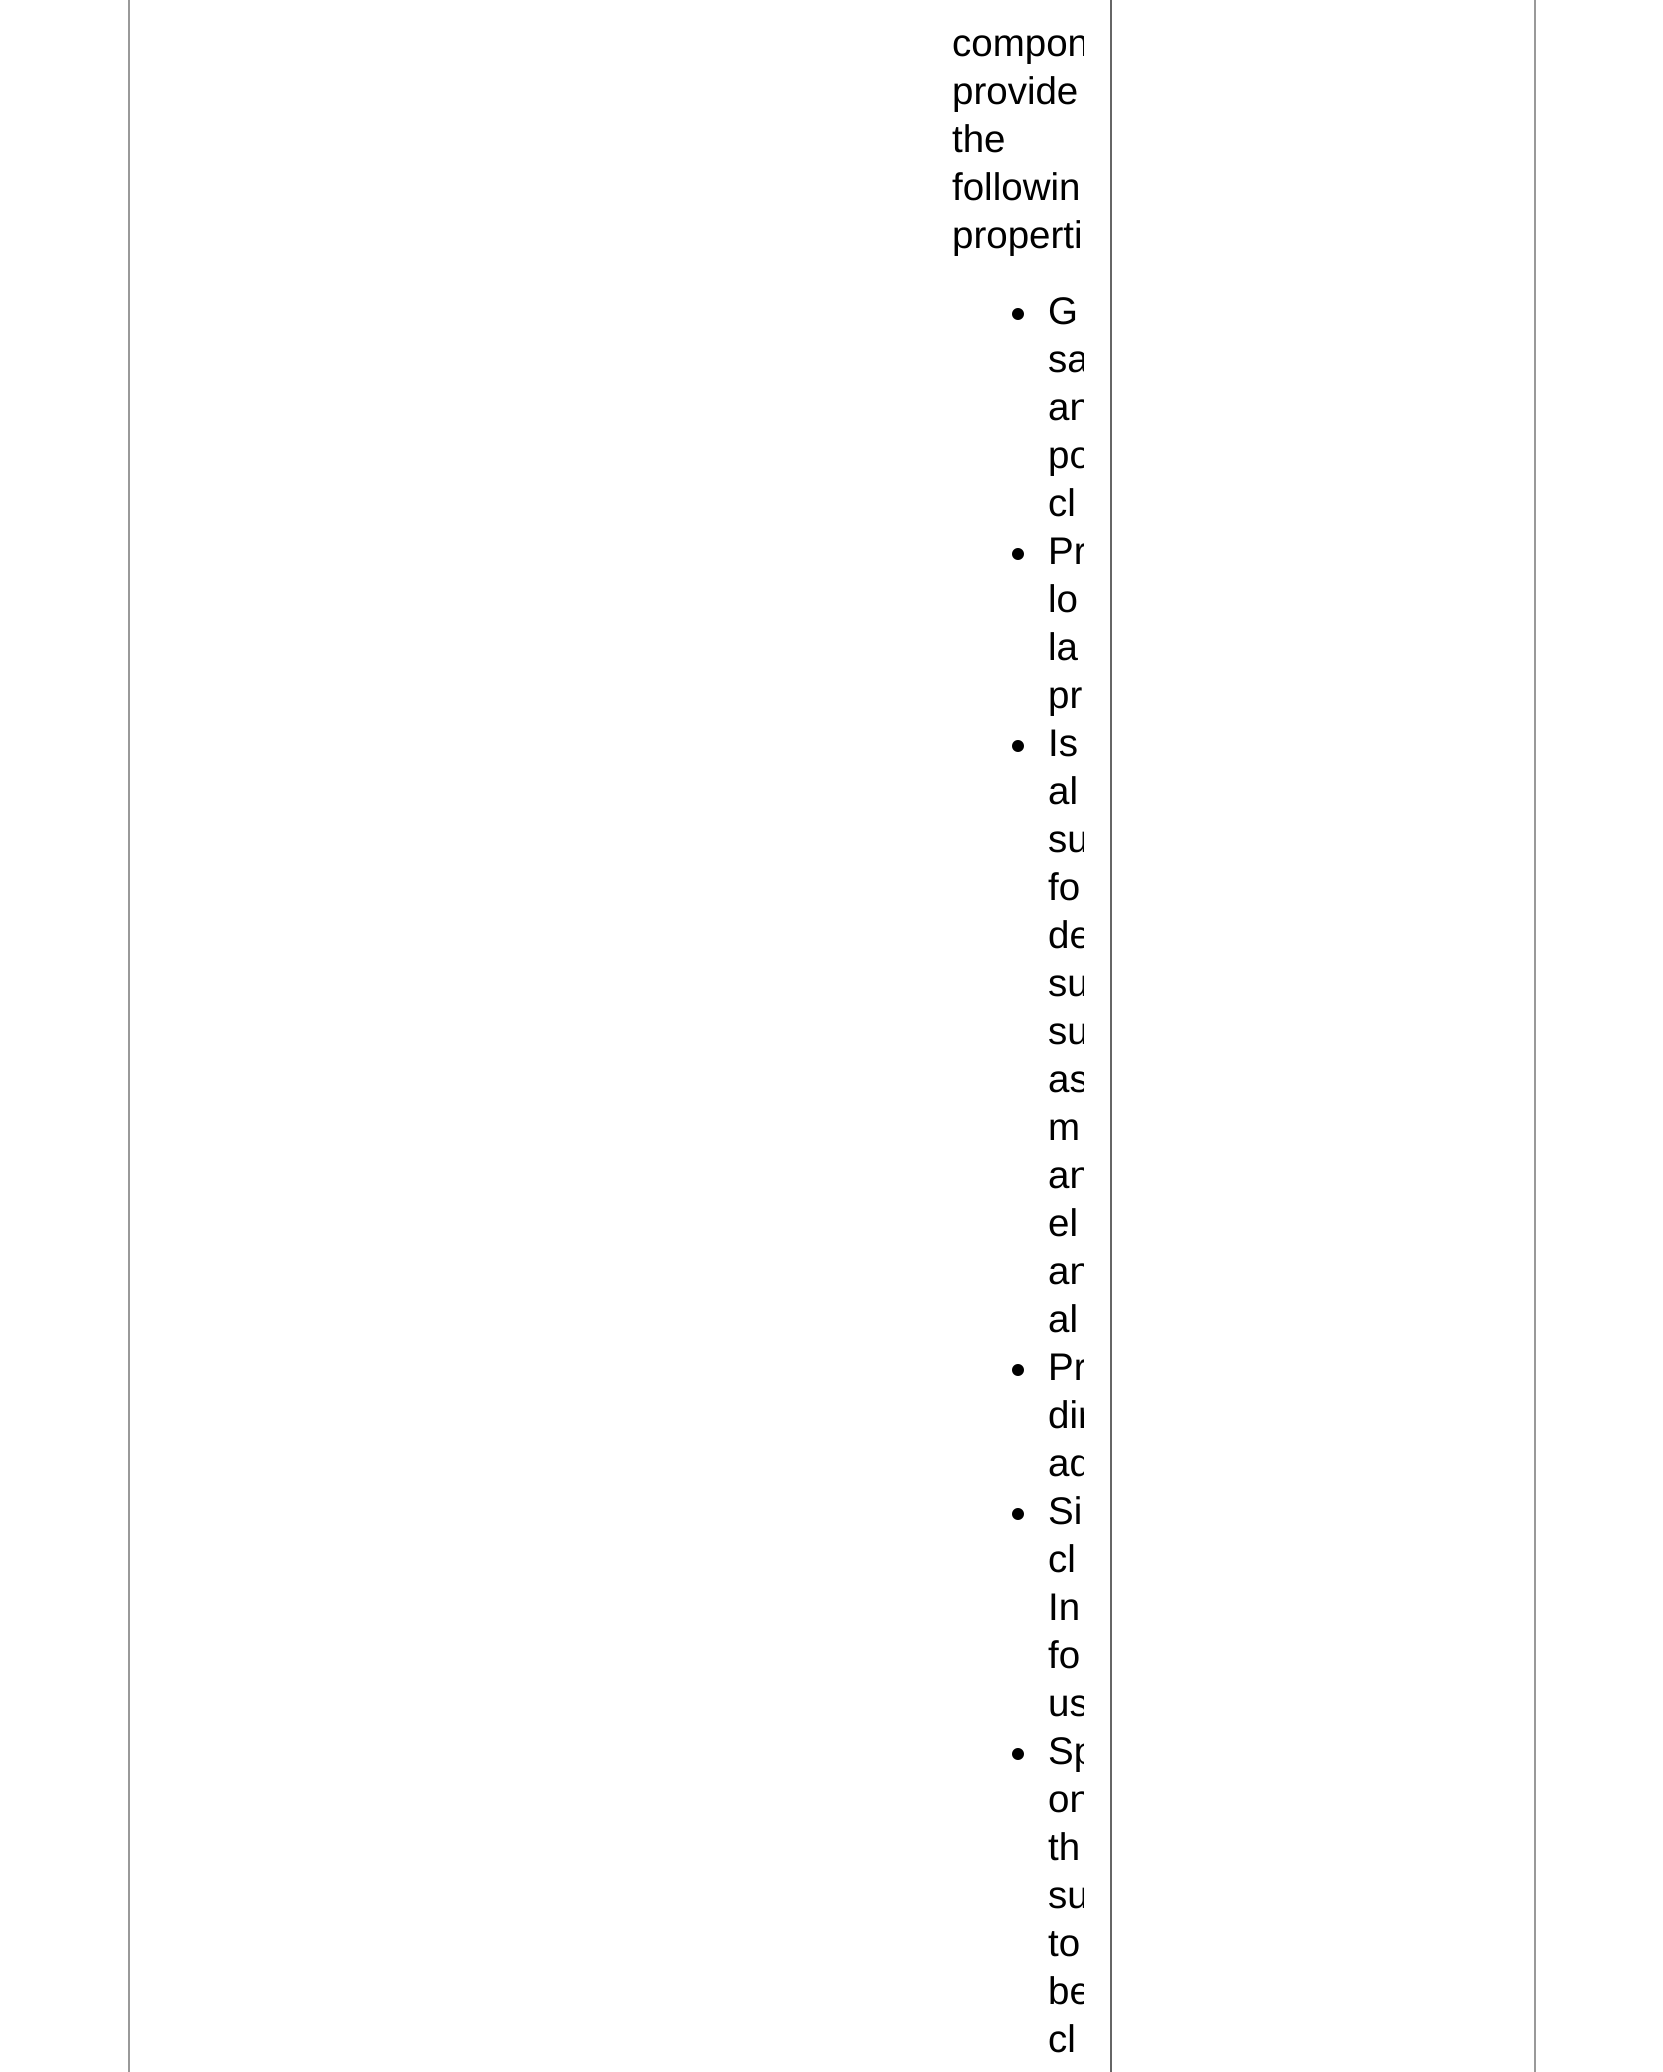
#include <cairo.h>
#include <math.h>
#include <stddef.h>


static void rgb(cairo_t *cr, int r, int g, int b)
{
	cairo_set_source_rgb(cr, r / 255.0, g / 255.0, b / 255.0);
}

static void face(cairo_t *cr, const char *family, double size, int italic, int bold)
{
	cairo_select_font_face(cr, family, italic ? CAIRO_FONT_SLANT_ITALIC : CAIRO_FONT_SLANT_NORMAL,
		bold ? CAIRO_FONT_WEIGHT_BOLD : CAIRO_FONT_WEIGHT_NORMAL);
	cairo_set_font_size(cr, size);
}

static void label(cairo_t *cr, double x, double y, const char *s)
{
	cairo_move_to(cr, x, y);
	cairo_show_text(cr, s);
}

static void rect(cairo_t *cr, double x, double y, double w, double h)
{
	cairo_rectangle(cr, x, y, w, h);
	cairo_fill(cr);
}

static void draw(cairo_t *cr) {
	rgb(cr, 255, 255, 255);
	cairo_paint(cr);
	cairo_rectangle(cr, 129, -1, 1406, 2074);
	rgb(cr, 153, 153, 153);
	cairo_stroke(cr);
	rgb(cr, 102, 102, 102);
	rect(cr, 1110, 0, 2, 2072);
	cairo_save(cr);
	cairo_rectangle(cr, 942, 0, 142, 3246);
	cairo_clip(cr);
	face(cr, "Liberation Sans", 38.5, 0, 0);
	rgb(cr, 0, 0, 0);
	label(cr, 952, 56, "compon");
	cairo_restore(cr);
	face(cr, "Liberation Sans", 38.5, 0, 0);
	rgb(cr, 0, 0, 0);
	label(cr, 952, 104, "provide");
	label(cr, 952, 152, "the");
	label(cr, 952, 200, "followin");
	label(cr, 952, 248, "properti");
	cairo_new_path(cr);
	cairo_arc(cr, 1018, 314, 6, 0, 2 * M_PI);
	cairo_fill(cr);
	label(cr, 1048, 324, "G");
	cairo_save(cr);
	cairo_rectangle(cr, 942, 0, 142, 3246);
	cairo_clip(cr);
	label(cr, 1048, 372, "sa");
	label(cr, 1048, 420, "an");
	label(cr, 1048, 468, "po");
	cairo_restore(cr);
	label(cr, 1048, 516, "cl");
	cairo_new_path(cr);
	cairo_arc(cr, 1018, 554, 6, 0, 2 * M_PI);
	cairo_fill(cr);
	cairo_save(cr);
	cairo_rectangle(cr, 942, 0, 142, 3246);
	cairo_clip(cr);
	label(cr, 1048, 564, "Pr");
	cairo_restore(cr);
	label(cr, 1048, 612, "lo");
	label(cr, 1048, 660, "la");
	label(cr, 1048, 708, "pr");
	cairo_new_path(cr);
	cairo_arc(cr, 1018, 746, 6, 0, 2 * M_PI);
	cairo_fill(cr);
	label(cr, 1048, 756, "Is");
	label(cr, 1048, 804, "al");
	cairo_save(cr);
	cairo_rectangle(cr, 942, 0, 142, 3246);
	cairo_clip(cr);
	label(cr, 1048, 852, "su");
	cairo_restore(cr);
	label(cr, 1048, 900, "fo");
	cairo_save(cr);
	cairo_rectangle(cr, 942, 0, 142, 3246);
	cairo_clip(cr);
	label(cr, 1048, 948, "de");
	label(cr, 1048, 996, "su");
	label(cr, 1048, 1044, "su");
	label(cr, 1048, 1092, "as");
	cairo_restore(cr);
	label(cr, 1048, 1140, "m");
	cairo_save(cr);
	cairo_rectangle(cr, 942, 0, 142, 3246);
	cairo_clip(cr);
	label(cr, 1048, 1188, "an");
	cairo_restore(cr);
	label(cr, 1048, 1236, "el");
	cairo_save(cr);
	cairo_rectangle(cr, 942, 0, 142, 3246);
	cairo_clip(cr);
	label(cr, 1048, 1284, "an");
	cairo_restore(cr);
	label(cr, 1048, 1332, "al");
	cairo_new_path(cr);
	cairo_arc(cr, 1018, 1370, 6, 0, 2 * M_PI);
	cairo_fill(cr);
	cairo_save(cr);
	cairo_rectangle(cr, 942, 0, 142, 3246);
	cairo_clip(cr);
	label(cr, 1048, 1380, "Pr");
	label(cr, 1048, 1428, "dir");
	label(cr, 1048, 1476, "ad");
	cairo_restore(cr);
	cairo_new_path(cr);
	cairo_arc(cr, 1018, 1514, 6, 0, 2 * M_PI);
	cairo_fill(cr);
	label(cr, 1048, 1524, "Si");
	label(cr, 1048, 1572, "cl");
	label(cr, 1048, 1620, "In");
	label(cr, 1048, 1668, "fo");
	cairo_save(cr);
	cairo_rectangle(cr, 942, 0, 142, 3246);
	cairo_clip(cr);
	label(cr, 1048, 1716, "us");
	cairo_restore(cr);
	cairo_new_path(cr);
	cairo_arc(cr, 1018, 1754, 6, 0, 2 * M_PI);
	cairo_fill(cr);
	cairo_save(cr);
	cairo_rectangle(cr, 942, 0, 142, 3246);
	cairo_clip(cr);
	label(cr, 1048, 1764, "Sp");
	label(cr, 1048, 1812, "on");
	cairo_restore(cr);
	label(cr, 1048, 1860, "th");
	cairo_save(cr);
	cairo_rectangle(cr, 942, 0, 142, 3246);
	cairo_clip(cr);
	label(cr, 1048, 1908, "su");
	cairo_restore(cr);
	label(cr, 1048, 1956, "to");
	cairo_save(cr);
	cairo_rectangle(cr, 942, 0, 142, 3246);
	cairo_clip(cr);
	label(cr, 1048, 2004, "be");
	cairo_restore(cr);
	label(cr, 1048, 2052, "cl");
}

int main(void) {
	cairo_surface_t *surface = cairo_image_surface_create(CAIRO_FORMAT_RGB24, 1663, 2072);
	cairo_t *cr = cairo_create(surface);
	cairo_font_options_t *options = cairo_font_options_create();
	cairo_font_options_set_hint_metrics(options, CAIRO_HINT_METRICS_OFF);
	cairo_font_options_set_hint_style(options, CAIRO_HINT_STYLE_NONE);
	cairo_set_font_options(cr, options);
	cairo_set_miter_limit(cr, 4);
	draw(cr);
	cairo_surface_write_to_png(surface, "render.png");
	cairo_font_options_destroy(options);
	cairo_destroy(cr);
	cairo_surface_destroy(surface);
	return 0;
}
